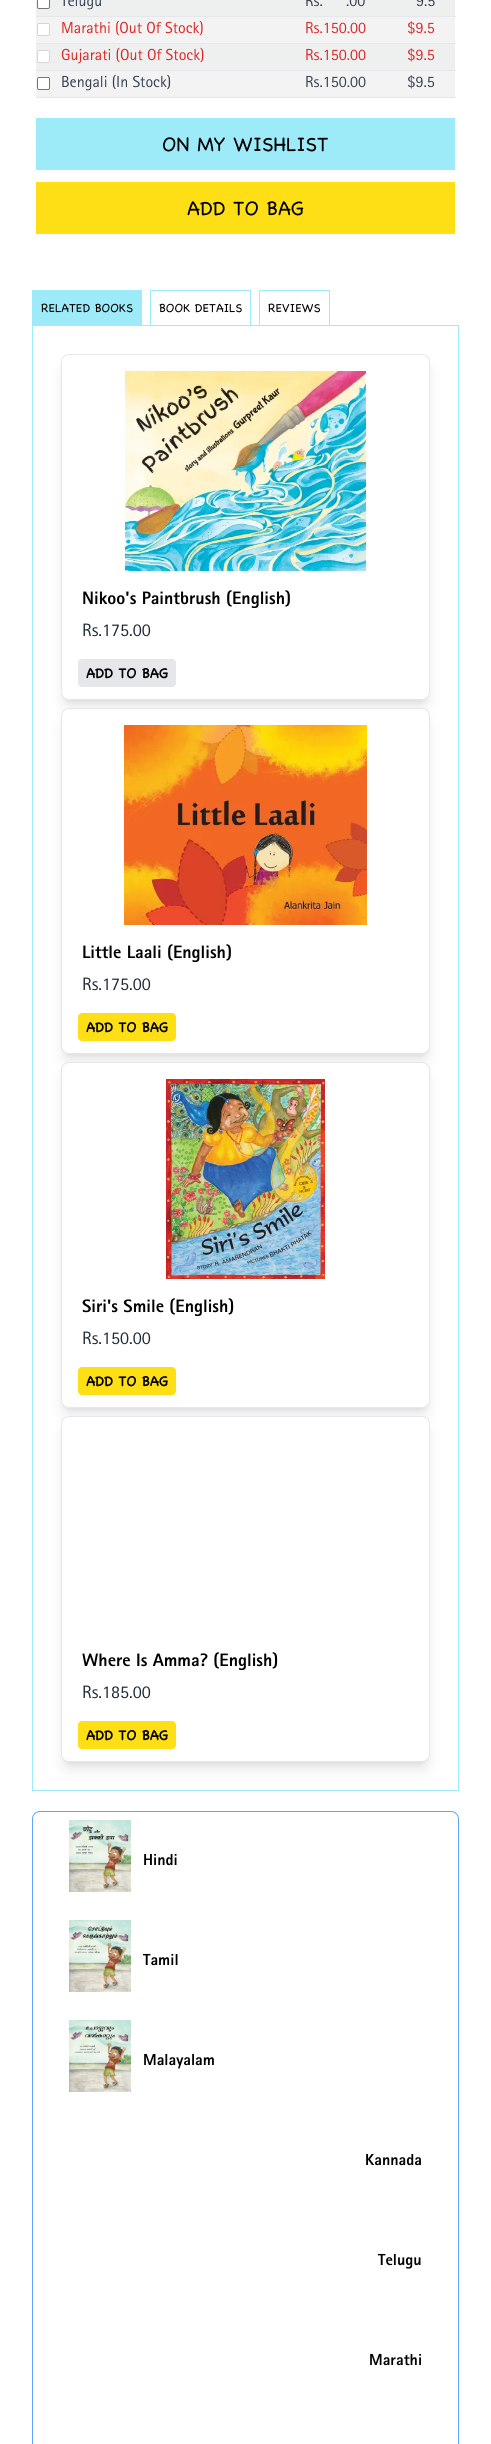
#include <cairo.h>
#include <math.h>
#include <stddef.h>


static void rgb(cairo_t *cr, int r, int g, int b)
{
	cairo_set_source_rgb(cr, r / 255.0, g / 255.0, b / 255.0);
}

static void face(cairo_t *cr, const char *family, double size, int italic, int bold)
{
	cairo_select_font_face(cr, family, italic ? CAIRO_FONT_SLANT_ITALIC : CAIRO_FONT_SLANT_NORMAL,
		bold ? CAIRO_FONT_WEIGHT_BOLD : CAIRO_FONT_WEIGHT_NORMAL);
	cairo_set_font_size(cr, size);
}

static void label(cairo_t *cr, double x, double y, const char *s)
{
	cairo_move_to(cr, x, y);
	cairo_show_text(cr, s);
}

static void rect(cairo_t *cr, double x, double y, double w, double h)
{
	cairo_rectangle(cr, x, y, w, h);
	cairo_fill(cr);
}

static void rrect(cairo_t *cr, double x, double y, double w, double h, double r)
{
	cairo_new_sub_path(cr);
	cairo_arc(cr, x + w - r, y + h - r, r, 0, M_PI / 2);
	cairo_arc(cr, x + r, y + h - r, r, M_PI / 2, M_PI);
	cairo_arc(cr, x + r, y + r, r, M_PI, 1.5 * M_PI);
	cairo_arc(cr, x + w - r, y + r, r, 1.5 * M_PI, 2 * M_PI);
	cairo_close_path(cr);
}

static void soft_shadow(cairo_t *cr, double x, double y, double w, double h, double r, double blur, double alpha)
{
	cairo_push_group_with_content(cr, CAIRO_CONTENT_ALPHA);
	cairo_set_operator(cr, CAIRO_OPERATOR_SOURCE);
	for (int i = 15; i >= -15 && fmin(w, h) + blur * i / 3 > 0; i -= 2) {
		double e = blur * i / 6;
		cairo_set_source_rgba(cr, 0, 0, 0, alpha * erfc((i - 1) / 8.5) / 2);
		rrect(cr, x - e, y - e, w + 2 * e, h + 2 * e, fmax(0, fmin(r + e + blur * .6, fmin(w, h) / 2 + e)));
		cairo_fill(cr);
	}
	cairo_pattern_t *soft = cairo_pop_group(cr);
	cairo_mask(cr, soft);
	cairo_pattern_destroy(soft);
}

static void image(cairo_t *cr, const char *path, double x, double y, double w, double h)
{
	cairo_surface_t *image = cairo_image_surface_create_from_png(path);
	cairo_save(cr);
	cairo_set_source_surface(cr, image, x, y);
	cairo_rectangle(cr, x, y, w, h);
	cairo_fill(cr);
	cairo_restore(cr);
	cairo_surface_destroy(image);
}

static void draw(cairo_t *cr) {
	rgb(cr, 255, 255, 255);
	cairo_paint(cr);
	rgb(cr, 238, 239, 239);
	rect(cr, 36, 0, 419, 16);
	rgb(cr, 229, 231, 235);
	rect(cr, 36, 16, 420, 1);
	rgb(cr, 255, 255, 255);
	rrect(cr, 37.5, -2.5, 12, 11, 1.5);
	cairo_fill_preserve(cr);
	rgb(cr, 118, 118, 118);
	cairo_set_line_width(cr, 1);
	cairo_stroke(cr);
	face(cr, "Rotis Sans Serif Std", 16, 0, 0);
	rgb(cr, 55, 65, 81);
	label(cr, 61, 6, "Telugu");
	label(cr, 305, 6, "Rs.");
	label(cr, 346, 6, ".00");
	label(cr, 416, 6, "9.5");
	rgb(cr, 243, 243, 244);
	rect(cr, 36, 17, 419, 26);
	rgb(cr, 229, 231, 235);
	rect(cr, 36, 43, 420, 1);
	rgb(cr, 255, 255, 255);
	rrect(cr, 37.5, 23.5, 12, 12, 1.5);
	cairo_fill_preserve(cr);
	rgb(cr, 214, 214, 214);
	cairo_stroke(cr);
	rgb(cr, 220, 38, 38);
	label(cr, 61, 33, "Marathi (Out Of Stock)");
	label(cr, 305, 33, "Rs.150.00");
	label(cr, 407, 33, "$9.5");
	rgb(cr, 238, 239, 239);
	rect(cr, 36, 44, 419, 26);
	rgb(cr, 229, 231, 235);
	rect(cr, 36, 70, 420, 1);
	rgb(cr, 255, 255, 255);
	rrect(cr, 37.5, 50.5, 12, 12, 1.5);
	cairo_fill_preserve(cr);
	rgb(cr, 214, 214, 214);
	cairo_stroke(cr);
	rgb(cr, 220, 38, 38);
	label(cr, 61, 60, "Gujarati (Out Of Stock)");
	label(cr, 305, 60, "Rs.150.00");
	label(cr, 407, 60, "$9.5");
	rgb(cr, 243, 243, 244);
	rect(cr, 36, 71, 419, 26);
	rgb(cr, 229, 231, 235);
	rect(cr, 36, 97, 420, 1);
	rgb(cr, 255, 255, 255);
	rrect(cr, 37.5, 77.5, 12, 12, 1.5);
	cairo_fill_preserve(cr);
	rgb(cr, 118, 118, 118);
	cairo_stroke(cr);
	rgb(cr, 55, 65, 81);
	label(cr, 61, 87, "Bengali (In Stock)");
	label(cr, 305, 87, "Rs.150.00");
	label(cr, 407, 87, "$9.5");
	rgb(cr, 157, 235, 248);
	rect(cr, 36, 118, 419, 52);
	face(cr, "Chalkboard", 20, 0, 0);
	rgb(cr, 0, 0, 0);
	label(cr, 162, 151, "ON MY WISHLIST");
	rgb(cr, 254, 223, 21);
	rect(cr, 36, 182, 419, 52);
	rgb(cr, 0, 0, 0);
	label(cr, 187, 215, "ADD TO BAG");
	rgb(cr, 157, 235, 248);
	rect(cr, 33, 291, 108, 34);
	rect(cr, 32, 290, 110, 1);
	rect(cr, 141, 290, 1, 35);
	rect(cr, 32, 290, 1, 35);
	face(cr, "Chalkboard", 12, 0, 0);
	rgb(cr, 0, 0, 0);
	label(cr, 41, 312, "RELATED BOOKS");
	rgb(cr, 157, 235, 248);
	rect(cr, 150, 290, 101, 1);
	rect(cr, 250, 290, 1, 35);
	rect(cr, 150, 290, 1, 35);
	rgb(cr, 0, 0, 0);
	label(cr, 159, 312, "BOOK DETAILS");
	rgb(cr, 157, 235, 248);
	rect(cr, 259, 290, 71, 1);
	rect(cr, 329, 290, 1, 35);
	rect(cr, 259, 290, 1, 35);
	rgb(cr, 0, 0, 0);
	label(cr, 268, 312, "REVIEWS");
	cairo_rectangle(cr, 32.5, 325.5, 426, 1465);
	rgb(cr, 157, 235, 248);
	cairo_stroke(cr);
	rgb(cr, 0, 0, 0);
	soft_shadow(cr, 65, 362, 361, 338, 4, 3, 0.1);
	soft_shadow(cr, 64, 367, 363, 340, 5, 7.5, 0.1);
	rgb(cr, 255, 255, 255);
	rrect(cr, 61.5, 354.5, 368, 345, 7.5);
	cairo_fill_preserve(cr);
	rgb(cr, 229, 231, 235);
	cairo_stroke(cr);
	image(cr, "image0.png", 125, 371, 241, 200);
	face(cr, "Rotis Sans Serif Std ExtraBold", 18, 0, 0);
	rgb(cr, 0, 0, 0);
	label(cr, 82, 604, "Nikoo's Paintbrush (English)");
	face(cr, "Rotis Sans Serif Std", 18, 0, 0);
	rgb(cr, 31, 41, 55);
	label(cr, 82, 636, "Rs.175.00");
	rgb(cr, 229, 231, 235);
	rrect(cr, 78, 659, 98, 28, 4);
	cairo_fill(cr);
	face(cr, "Chalkboard", 14, 0, 1);
	rgb(cr, 0, 0, 0);
	label(cr, 86, 678, "ADD TO BAG");
	rgb(cr, 0, 0, 0);
	soft_shadow(cr, 65, 716, 361, 338, 4, 3, 0.1);
	soft_shadow(cr, 64, 721, 363, 340, 5, 7.5, 0.1);
	rgb(cr, 255, 255, 255);
	rrect(cr, 61.5, 708.5, 368, 345, 7.5);
	cairo_fill_preserve(cr);
	rgb(cr, 229, 231, 235);
	cairo_stroke(cr);
	image(cr, "image1.png", 124, 725, 243, 200);
	face(cr, "Rotis Sans Serif Std ExtraBold", 18, 0, 0);
	rgb(cr, 0, 0, 0);
	label(cr, 82, 958, "Little Laali (English)");
	face(cr, "Rotis Sans Serif Std", 18, 0, 0);
	rgb(cr, 31, 41, 55);
	label(cr, 82, 990, "Rs.175.00");
	rgb(cr, 254, 223, 21);
	rrect(cr, 78, 1013, 98, 28, 4);
	cairo_fill(cr);
	face(cr, "Chalkboard", 14, 0, 1);
	rgb(cr, 0, 0, 0);
	label(cr, 86, 1032, "ADD TO BAG");
	rgb(cr, 0, 0, 0);
	soft_shadow(cr, 65, 1070, 361, 338, 4, 3, 0.1);
	soft_shadow(cr, 64, 1075, 363, 340, 5, 7.5, 0.1);
	rgb(cr, 255, 255, 255);
	rrect(cr, 61.5, 1062.5, 368, 345, 7.5);
	cairo_fill_preserve(cr);
	rgb(cr, 229, 231, 235);
	cairo_stroke(cr);
	image(cr, "image2.png", 166, 1079, 159, 200);
	face(cr, "Rotis Sans Serif Std ExtraBold", 18, 0, 0);
	rgb(cr, 0, 0, 0);
	label(cr, 82, 1312, "Siri's Smile (English)");
	face(cr, "Rotis Sans Serif Std", 18, 0, 0);
	rgb(cr, 31, 41, 55);
	label(cr, 82, 1344, "Rs.150.00");
	rgb(cr, 254, 223, 21);
	rrect(cr, 78, 1367, 98, 28, 4);
	cairo_fill(cr);
	face(cr, "Chalkboard", 14, 0, 1);
	rgb(cr, 0, 0, 0);
	label(cr, 86, 1386, "ADD TO BAG");
	rgb(cr, 0, 0, 0);
	soft_shadow(cr, 65, 1424, 361, 338, 4, 3, 0.1);
	soft_shadow(cr, 64, 1429, 363, 340, 5, 7.5, 0.1);
	rgb(cr, 255, 255, 255);
	rrect(cr, 61.5, 1416.5, 368, 345, 7.5);
	cairo_fill_preserve(cr);
	rgb(cr, 229, 231, 235);
	cairo_stroke(cr);
	face(cr, "Rotis Sans Serif Std ExtraBold", 18, 0, 0);
	rgb(cr, 0, 0, 0);
	label(cr, 82, 1666, "Where Is Amma? (English)");
	face(cr, "Rotis Sans Serif Std", 18, 0, 0);
	rgb(cr, 31, 41, 55);
	label(cr, 82, 1698, "Rs.185.00");
	rgb(cr, 254, 223, 21);
	rrect(cr, 78, 1721, 98, 28, 4);
	cairo_fill(cr);
	face(cr, "Chalkboard", 14, 0, 1);
	rgb(cr, 0, 0, 0);
	label(cr, 86, 1740, "ADD TO BAG");
	rrect(cr, 32.5, 1811.5, 426, 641, 7.5);
	rgb(cr, 96, 165, 250);
	cairo_stroke(cr);
	image(cr, "image3.png", 69, 1820, 62, 72);
	face(cr, "Rotis Sans Serif Std ExtraBold", 16, 0, 0);
	rgb(cr, 0, 0, 0);
	label(cr, 143, 1865, "Hindi");
	image(cr, "image4.png", 69, 1920, 62, 72);
	label(cr, 143, 1965, "Tamil");
	image(cr, "image5.png", 69, 2020, 62, 72);
	label(cr, 143, 2065, "Malayalam");
	label(cr, 365, 2165, "Kannada");
	label(cr, 378, 2265, "Telugu");
	label(cr, 369, 2365, "Marathi");
}

int main(void) {
	cairo_surface_t *surface = cairo_image_surface_create(CAIRO_FORMAT_RGB24, 491, 2444);
	cairo_t *cr = cairo_create(surface);
	cairo_font_options_t *options = cairo_font_options_create();
	cairo_font_options_set_hint_metrics(options, CAIRO_HINT_METRICS_OFF);
	cairo_font_options_set_hint_style(options, CAIRO_HINT_STYLE_NONE);
	cairo_set_font_options(cr, options);
	cairo_set_miter_limit(cr, 4);
	draw(cr);
	cairo_surface_write_to_png(surface, "render.png");
	cairo_font_options_destroy(options);
	cairo_destroy(cr);
	cairo_surface_destroy(surface);
	return 0;
}
